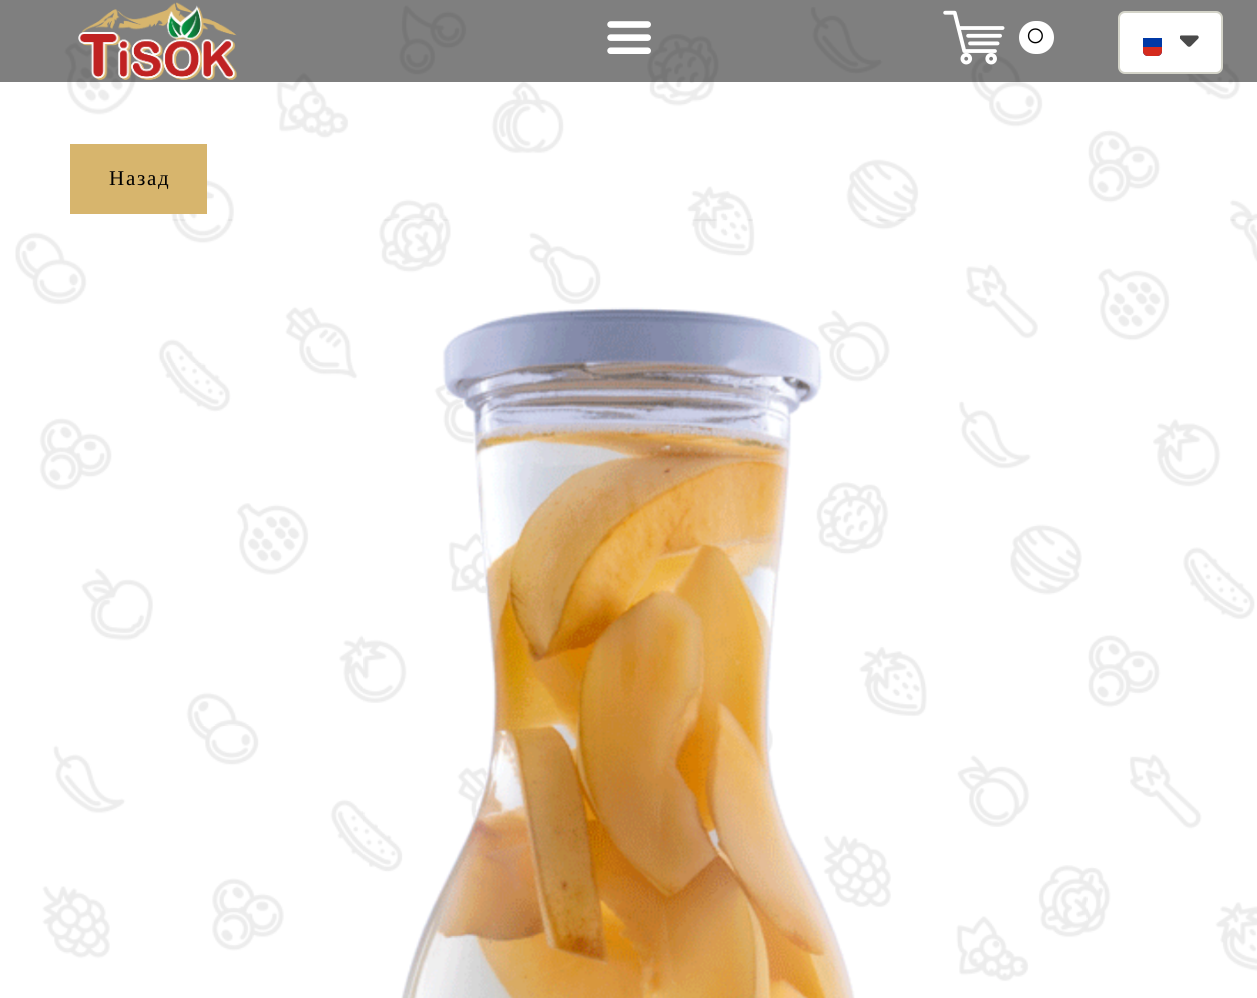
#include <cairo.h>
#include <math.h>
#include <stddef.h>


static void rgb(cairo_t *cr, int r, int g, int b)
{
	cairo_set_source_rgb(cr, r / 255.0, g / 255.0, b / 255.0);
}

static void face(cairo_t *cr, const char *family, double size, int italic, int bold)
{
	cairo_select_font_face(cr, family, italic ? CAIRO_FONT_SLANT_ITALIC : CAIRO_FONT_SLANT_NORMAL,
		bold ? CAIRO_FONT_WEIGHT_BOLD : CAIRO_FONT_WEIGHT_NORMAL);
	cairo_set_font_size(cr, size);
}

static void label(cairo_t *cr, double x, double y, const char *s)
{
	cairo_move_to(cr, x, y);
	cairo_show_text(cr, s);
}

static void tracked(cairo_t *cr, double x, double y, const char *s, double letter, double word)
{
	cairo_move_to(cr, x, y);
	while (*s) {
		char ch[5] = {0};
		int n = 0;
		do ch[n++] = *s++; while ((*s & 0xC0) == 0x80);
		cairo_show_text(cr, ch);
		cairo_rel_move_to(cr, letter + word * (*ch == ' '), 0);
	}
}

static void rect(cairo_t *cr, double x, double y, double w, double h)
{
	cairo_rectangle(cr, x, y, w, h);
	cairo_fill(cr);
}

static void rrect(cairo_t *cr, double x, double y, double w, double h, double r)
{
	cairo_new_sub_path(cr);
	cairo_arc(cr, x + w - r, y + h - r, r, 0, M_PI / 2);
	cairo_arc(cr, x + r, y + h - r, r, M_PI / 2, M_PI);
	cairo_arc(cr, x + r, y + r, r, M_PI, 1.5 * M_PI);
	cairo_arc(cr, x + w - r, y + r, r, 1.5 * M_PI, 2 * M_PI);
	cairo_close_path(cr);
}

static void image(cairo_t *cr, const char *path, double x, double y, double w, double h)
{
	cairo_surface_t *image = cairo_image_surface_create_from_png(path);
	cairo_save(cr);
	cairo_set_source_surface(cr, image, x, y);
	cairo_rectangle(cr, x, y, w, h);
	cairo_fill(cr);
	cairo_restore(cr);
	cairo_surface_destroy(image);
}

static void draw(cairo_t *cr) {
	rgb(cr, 255, 255, 255);
	cairo_paint(cr);
	image(cr, "image4.png", 64, 5, 1193, 216);
	cairo_set_source_rgba(cr, 0, 0, 0, 0.5);
	rect(cr, 0, 0, 1257, 82);
	image(cr, "image0.png", 78, 2, 159, 78);
	image(cr, "image1.png", 607, 21, 44, 33);
	image(cr, "image2.png", 943, 10, 62, 55);
	rgb(cr, 255, 255, 255);
	rrect(cr, 1019, 21, 35, 33, 16.5);
	cairo_fill(cr);
	face(cr, "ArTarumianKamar", 18, 0, 0);
	rgb(cr, 0, 0, 0);
	label(cr, 1027, 43, "0");
	rgb(cr, 255, 255, 255);
	rrect(cr, 1119, 12, 103, 61, 6);
	cairo_fill_preserve(cr);
	rgb(cr, 212, 212, 201);
	cairo_stroke(cr);
	rgb(cr, 0, 57, 166);
	cairo_new_path(cr);
	cairo_move_to(cr, 1143, 38);
	cairo_line_to(cr, 1162, 38);
	cairo_line_to(cr, 1162, 51);
	cairo_curve_to(cr, 1162, 54, 1160, 56, 1157, 56);
	cairo_line_to(cr, 1148, 56);
	cairo_curve_to(cr, 1145, 56, 1143, 54, 1143, 51);
	cairo_close_path(cr);
	cairo_fill(cr);
	rgb(cr, 213, 43, 30);
	cairo_new_path(cr);
	cairo_move_to(cr, 1143, 47);
	cairo_line_to(cr, 1162, 47);
	cairo_line_to(cr, 1162, 51);
	cairo_curve_to(cr, 1162, 54, 1160, 56, 1157, 56);
	cairo_line_to(cr, 1148, 56);
	cairo_curve_to(cr, 1145, 56, 1143, 54, 1143, 51);
	cairo_close_path(cr);
	cairo_fill(cr);
	image(cr, "image3.png", 1180, 35, 19, 12);
	rgb(cr, 215, 181, 109);
	rect(cr, 70, 144, 137, 70);
	face(cr, "Liberation Serif", 21, 0, 0);
	rgb(cr, 0, 0, 0);
	tracked(cr, 109, 185, "Назад", 1.75, 0);
	image(cr, "image5.png", 15, 219, 1242, 763);
	image(cr, "image6.png", 401, 307, 454, 691);
}

int main(void) {
	cairo_surface_t *surface = cairo_image_surface_create(CAIRO_FORMAT_RGB24, 1257, 998);
	cairo_t *cr = cairo_create(surface);
	cairo_font_options_t *options = cairo_font_options_create();
	cairo_font_options_set_hint_metrics(options, CAIRO_HINT_METRICS_OFF);
	cairo_font_options_set_hint_style(options, CAIRO_HINT_STYLE_NONE);
	cairo_set_font_options(cr, options);
	cairo_set_miter_limit(cr, 4);
	draw(cr);
	cairo_surface_write_to_png(surface, "render.png");
	cairo_font_options_destroy(options);
	cairo_destroy(cr);
	cairo_surface_destroy(surface);
	return 0;
}
